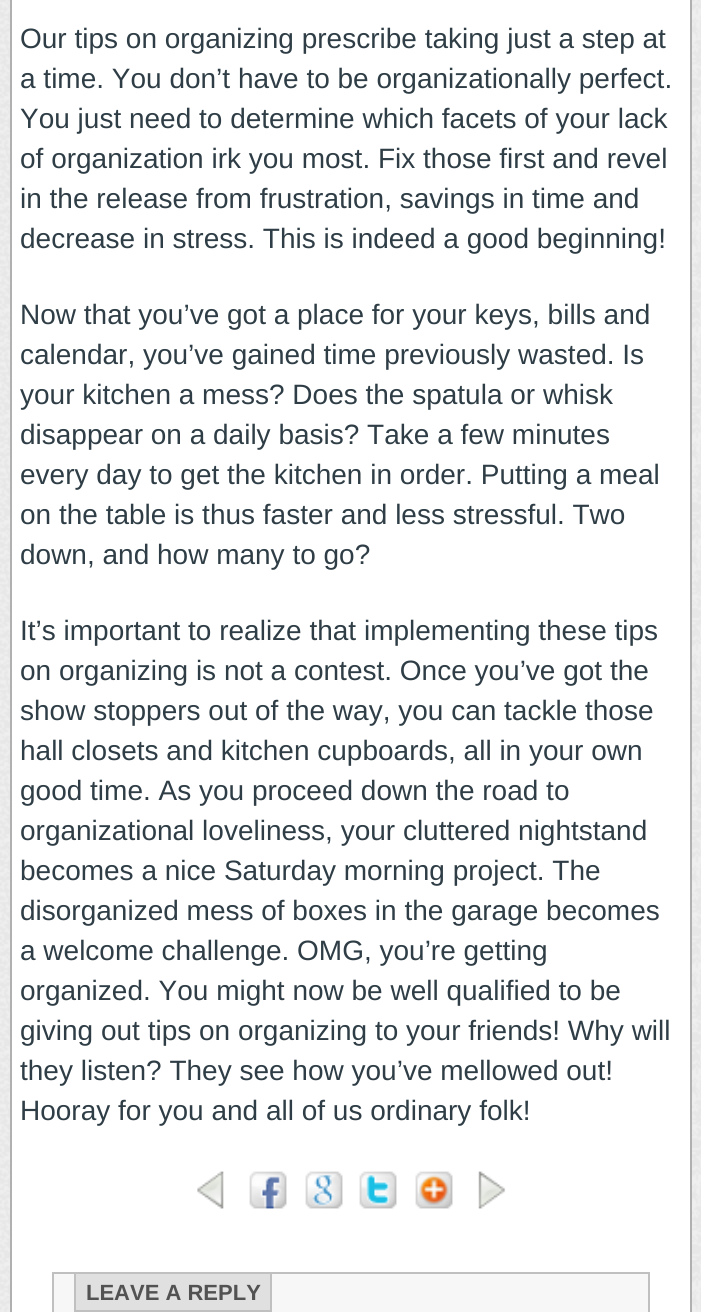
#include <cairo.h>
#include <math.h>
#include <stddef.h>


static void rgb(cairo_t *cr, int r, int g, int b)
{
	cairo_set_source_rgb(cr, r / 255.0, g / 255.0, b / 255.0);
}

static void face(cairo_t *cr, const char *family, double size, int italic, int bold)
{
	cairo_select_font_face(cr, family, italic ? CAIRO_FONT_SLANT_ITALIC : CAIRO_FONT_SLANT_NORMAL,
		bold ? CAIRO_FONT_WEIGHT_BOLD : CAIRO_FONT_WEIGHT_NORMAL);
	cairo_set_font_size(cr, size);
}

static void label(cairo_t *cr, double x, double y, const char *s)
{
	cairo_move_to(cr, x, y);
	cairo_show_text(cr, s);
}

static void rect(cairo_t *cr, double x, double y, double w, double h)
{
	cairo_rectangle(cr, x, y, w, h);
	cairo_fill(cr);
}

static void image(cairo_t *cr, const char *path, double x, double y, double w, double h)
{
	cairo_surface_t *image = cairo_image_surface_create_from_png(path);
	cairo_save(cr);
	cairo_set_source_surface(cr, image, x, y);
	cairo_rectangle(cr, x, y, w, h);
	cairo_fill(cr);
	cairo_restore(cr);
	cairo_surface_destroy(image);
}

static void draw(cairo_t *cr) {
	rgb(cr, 255, 255, 255);
	cairo_paint(cr);
	image(cr, "image0.png", 0, 0, 701, 1312);
	rgb(cr, 255, 255, 255);
	rect(cr, 12, 0, 678, 1312);
	rgb(cr, 176, 176, 176);
	cairo_new_path(cr);
	cairo_move_to(cr, 692, -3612);
	cairo_line_to(cr, 692, 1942);
	cairo_line_to(cr, 690, 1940);
	cairo_line_to(cr, 690, -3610);
	cairo_close_path(cr);
	cairo_fill(cr);
	cairo_new_path(cr);
	cairo_move_to(cr, 10, 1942);
	cairo_line_to(cr, 10, -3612);
	cairo_line_to(cr, 12, -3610);
	cairo_line_to(cr, 12, 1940);
	cairo_close_path(cr);
	cairo_fill(cr);
	face(cr, "Liberation Sans", 28, 0, 0);
	rgb(cr, 47, 62, 70);
	label(cr, 20, 48, "Our tips on organizing prescribe taking just a step at");
	label(cr, 20, 88, "a time. You don’t have to be organizationally perfect.");
	label(cr, 20, 128, "You just need to determine which facets of your lack");
	label(cr, 20, 168, "of organization irk you most. Fix those first and revel");
	label(cr, 20, 208, "in the release from frustration, savings in time and");
	label(cr, 20, 248, "decrease in stress. This is indeed a good beginning!");
	label(cr, 20, 324, "Now that you’ve got a place for your keys, bills and");
	label(cr, 20, 364, "calendar, you’ve gained time previously wasted. Is");
	label(cr, 20, 404, "your kitchen a mess? Does the spatula or whisk");
	label(cr, 20, 444, "disappear on a daily basis? Take a few minutes");
	label(cr, 20, 484, "every day to get the kitchen in order. Putting a meal");
	label(cr, 20, 524, "on the table is thus faster and less stressful. Two");
	label(cr, 20, 564, "down, and how many to go?");
	label(cr, 20, 640, "It’s important to realize that implementing these tips");
	label(cr, 20, 680, "on organizing is not a contest. Once you’ve got the");
	label(cr, 20, 720, "show stoppers out of the way, you can tackle those");
	label(cr, 20, 760, "hall closets and kitchen cupboards, all in your own");
	label(cr, 20, 800, "good time. As you proceed down the road to");
	label(cr, 20, 840, "organizational loveliness, your cluttered nightstand");
	label(cr, 20, 880, "becomes a nice Saturday morning project. The");
	label(cr, 20, 920, "disorganized mess of boxes in the garage becomes");
	label(cr, 20, 960, "a welcome challenge. OMG, you’re getting");
	label(cr, 20, 1000, "organized. You might now be well qualified to be");
	label(cr, 20, 1040, "giving out tips on organizing to your friends! Why will");
	label(cr, 20, 1080, "they listen? They see how you’ve mellowed out!");
	label(cr, 20, 1120, "Hooray for you and all of us ordinary folk!");
	image(cr, "image1.png", 197, 1171, 27, 38);
	image(cr, "image2.png", 249, 1171, 38, 38);
	image(cr, "image3.png", 305, 1171, 38, 38);
	image(cr, "image4.png", 359, 1171, 38, 38);
	image(cr, "image5.png", 415, 1171, 38, 38);
	image(cr, "image6.png", 478, 1171, 28, 38);
	rgb(cr, 247, 247, 247);
	cairo_rectangle(cr, 53, 1273, 596, 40);
	cairo_fill_preserve(cr);
	rgb(cr, 192, 192, 192);
	cairo_stroke(cr);
	rgb(cr, 224, 224, 224);
	cairo_rectangle(cr, 75, 1273, 196, 38);
	cairo_fill_preserve(cr);
	rgb(cr, 192, 192, 192);
	cairo_stroke(cr);
	face(cr, "Liberation Sans", 22, 0, 1);
	rgb(cr, 82, 82, 82);
	label(cr, 86, 1300, "LEAVE A REPLY");
}

int main(void) {
	cairo_surface_t *surface = cairo_image_surface_create(CAIRO_FORMAT_RGB24, 701, 1312);
	cairo_t *cr = cairo_create(surface);
	cairo_font_options_t *options = cairo_font_options_create();
	cairo_font_options_set_hint_metrics(options, CAIRO_HINT_METRICS_OFF);
	cairo_font_options_set_hint_style(options, CAIRO_HINT_STYLE_NONE);
	cairo_set_font_options(cr, options);
	cairo_set_miter_limit(cr, 4);
	draw(cr);
	cairo_surface_write_to_png(surface, "render.png");
	cairo_font_options_destroy(options);
	cairo_destroy(cr);
	cairo_surface_destroy(surface);
	return 0;
}
